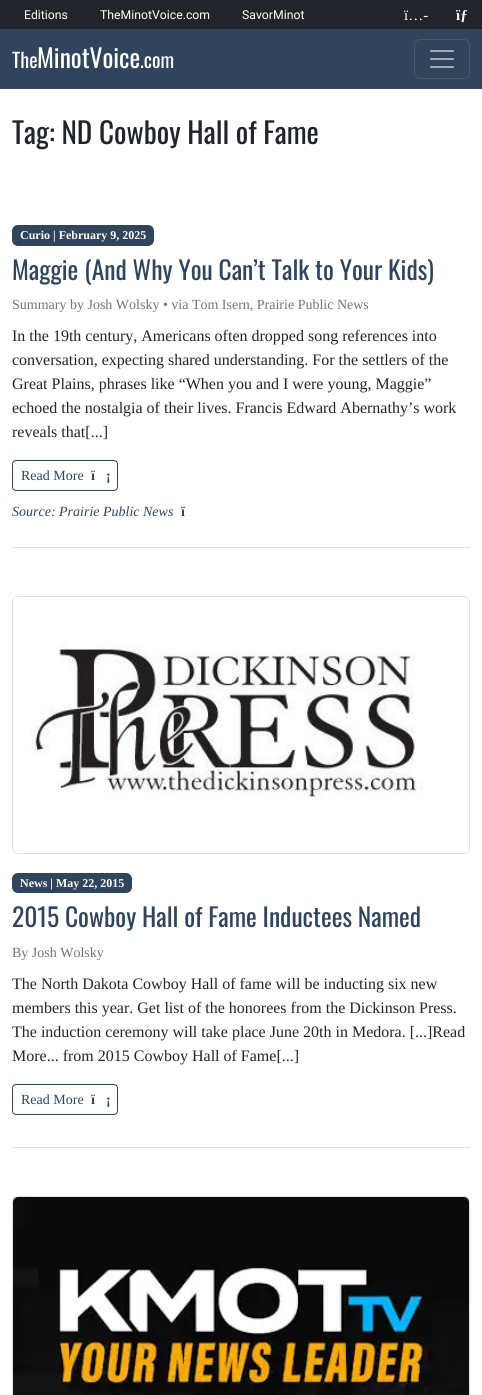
#include <cairo.h>
#include <math.h>
#include <stddef.h>


static void rgb(cairo_t *cr, int r, int g, int b)
{
	cairo_set_source_rgb(cr, r / 255.0, g / 255.0, b / 255.0);
}

static void face(cairo_t *cr, const char *family, double size, int italic, int bold)
{
	cairo_select_font_face(cr, family, italic ? CAIRO_FONT_SLANT_ITALIC : CAIRO_FONT_SLANT_NORMAL,
		bold ? CAIRO_FONT_WEIGHT_BOLD : CAIRO_FONT_WEIGHT_NORMAL);
	cairo_set_font_size(cr, size);
}

static void label(cairo_t *cr, double x, double y, const char *s)
{
	cairo_move_to(cr, x, y);
	cairo_show_text(cr, s);
}

static void rect(cairo_t *cr, double x, double y, double w, double h)
{
	cairo_rectangle(cr, x, y, w, h);
	cairo_fill(cr);
}

static void rrect(cairo_t *cr, double x, double y, double w, double h, double r)
{
	cairo_new_sub_path(cr);
	cairo_arc(cr, x + w - r, y + h - r, r, 0, M_PI / 2);
	cairo_arc(cr, x + r, y + h - r, r, M_PI / 2, M_PI);
	cairo_arc(cr, x + r, y + r, r, M_PI, 1.5 * M_PI);
	cairo_arc(cr, x + w - r, y + r, r, 1.5 * M_PI, 2 * M_PI);
	cairo_close_path(cr);
}

static void image(cairo_t *cr, const char *path, double x, double y, double w, double h)
{
	cairo_surface_t *image = cairo_image_surface_create_from_png(path);
	cairo_save(cr);
	cairo_set_source_surface(cr, image, x, y);
	cairo_rectangle(cr, x, y, w, h);
	cairo_fill(cr);
	cairo_restore(cr);
	cairo_surface_destroy(image);
}

static void draw(cairo_t *cr) {
	rgb(cr, 255, 255, 255);
	cairo_paint(cr);
	rgb(cr, 33, 37, 41);
	rect(cr, 0, 0, 482, 29);
	face(cr, "Roboto", 12.25, 0, 0);
	rgb(cr, 255, 255, 255);
	label(cr, 24, 19, "Editions");
	label(cr, 100, 19, "TheMinotVoice.com");
	label(cr, 242, 19, "SavorMinot");
	face(cr, "Liberation Serif", 15, 0, 0);
	label(cr, 404, 20, "ï…-");
	face(cr, "Liberation Serif", 15, 0, 1);
	label(cr, 456, 20, "ïƒ");
	rgb(cr, 48, 68, 92);
	rect(cr, 0, 29, 482, 60);
	face(cr, "Oswald", 20, 0, 0);
	rgb(cr, 255, 255, 255);
	label(cr, 12, 68, "The");
	face(cr, "Oswald", 25.5, 0, 0);
	label(cr, 37, 68, "MinotVoice");
	face(cr, "Oswald", 20, 0, 0);
	label(cr, 140, 68, ".com");
	rrect(cr, 414.5, 39.5, 55, 39, 5.5);
	rgb(cr, 69, 87, 108);
	cairo_set_line_width(cr, 1);
	cairo_stroke(cr);
	image(cr, "image0.png", 430, 50, 24, 18);
	face(cr, "Oswald", 29.25, 0, 0);
	rgb(cr, 33, 37, 41);
	label(cr, 12, 144, "Tag: ND Cowboy Hall of Fame");
	rgb(cr, 222, 226, 230);
	rect(cr, 12, 547, 458, 1);
	rgb(cr, 48, 68, 92);
	rrect(cr, 12, 225, 142, 21, 6);
	cairo_fill(cr);
	face(cr, "Liberation Serif", 12, 0, 1);
	rgb(cr, 255, 255, 255);
	label(cr, 20, 239, "Curio | February 9, 2025");
	face(cr, "Oswald", 25.5, 0, 0);
	rgb(cr, 48, 68, 92);
	label(cr, 12, 280, "Maggie (And Why You Can’t Talk to Your Kids)");
	face(cr, "Liberation Serif", 14, 0, 0);
	rgb(cr, 108, 117, 125);
	label(cr, 12, 309, "Summary by Josh Wolsky • via Tom Isern, Prairie Public News");
	face(cr, "Liberation Serif", 16, 0, 0);
	rgb(cr, 33, 37, 41);
	label(cr, 12, 341, "In the 19th century, Americans often dropped song references into");
	label(cr, 12, 365, "conversation, expecting shared understanding. For the settlers of the");
	label(cr, 12, 389, "Great Plains, phrases like “When you and I were young, Maggie”");
	label(cr, 12, 413, "echoed the nostalgia of their lives. Francis Edward Abernathy’s work");
	label(cr, 12, 437, "reveals that[...]");
	rrect(cr, 12.5, 460.5, 105, 30, 3.5);
	rgb(cr, 48, 68, 92);
	cairo_stroke(cr);
	face(cr, "Liberation Serif", 14, 0, 0);
	label(cr, 21, 480, "Read More");
	face(cr, "Liberation Serif", 14, 0, 1);
	label(cr, 91, 480, "ï");
	label(cr, 106, 480, "¡");
	face(cr, "Liberation Serif", 14, 1, 0);
	label(cr, 12, 516, "Source: Prairie Public News");
	face(cr, "Liberation Serif", 14, 0, 1);
	label(cr, 181, 516, "ï");
	rgb(cr, 222, 226, 230);
	rect(cr, 12, 1147, 458, 1);
	rrect(cr, 12.5, 596.5, 457, 257, 5.5);
	cairo_stroke(cr);
	image(cr, "image1.png", 13, 597, 456, 256);
	rgb(cr, 48, 68, 92);
	rrect(cr, 12, 873, 120, 20, 6);
	cairo_fill(cr);
	face(cr, "Liberation Serif", 12, 0, 1);
	rgb(cr, 255, 255, 255);
	label(cr, 20, 887, "News | May 22, 2015");
	face(cr, "Oswald", 25.5, 0, 0);
	rgb(cr, 48, 68, 92);
	label(cr, 12, 927, "2015 Cowboy Hall of Fame Inductees Named");
	face(cr, "Liberation Serif", 14, 0, 0);
	rgb(cr, 108, 117, 125);
	label(cr, 12, 957, "By Josh Wolsky");
	face(cr, "Liberation Serif", 16, 0, 0);
	rgb(cr, 33, 37, 41);
	label(cr, 12, 989, "The North Dakota Cowboy Hall of fame will be inducting six new");
	label(cr, 12, 1013, "members this year. Get list of the honorees from the Dickinson Press.");
	label(cr, 12, 1037, "The induction ceremony will take place June 20th in Medora. [...]Read");
	label(cr, 12, 1061, "More... from 2015 Cowboy Hall of Fame[...]");
	rrect(cr, 12.5, 1084.5, 105, 30, 3.5);
	rgb(cr, 48, 68, 92);
	cairo_stroke(cr);
	face(cr, "Liberation Serif", 14, 0, 0);
	label(cr, 21, 1104, "Read More");
	face(cr, "Liberation Serif", 14, 0, 1);
	label(cr, 91, 1104, "ï");
	label(cr, 106, 1104, "¡");
	rrect(cr, 12.5, 1196.5, 457, 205, 5.5);
	rgb(cr, 222, 226, 230);
	cairo_stroke(cr);
	image(cr, "image2.png", 13, 1197, 456, 198);
}

int main(void) {
	cairo_surface_t *surface = cairo_image_surface_create(CAIRO_FORMAT_RGB24, 482, 1395);
	cairo_t *cr = cairo_create(surface);
	cairo_font_options_t *options = cairo_font_options_create();
	cairo_font_options_set_hint_metrics(options, CAIRO_HINT_METRICS_OFF);
	cairo_font_options_set_hint_style(options, CAIRO_HINT_STYLE_NONE);
	cairo_set_font_options(cr, options);
	cairo_set_miter_limit(cr, 4);
	draw(cr);
	cairo_surface_write_to_png(surface, "render.png");
	cairo_font_options_destroy(options);
	cairo_destroy(cr);
	cairo_surface_destroy(surface);
	return 0;
}
